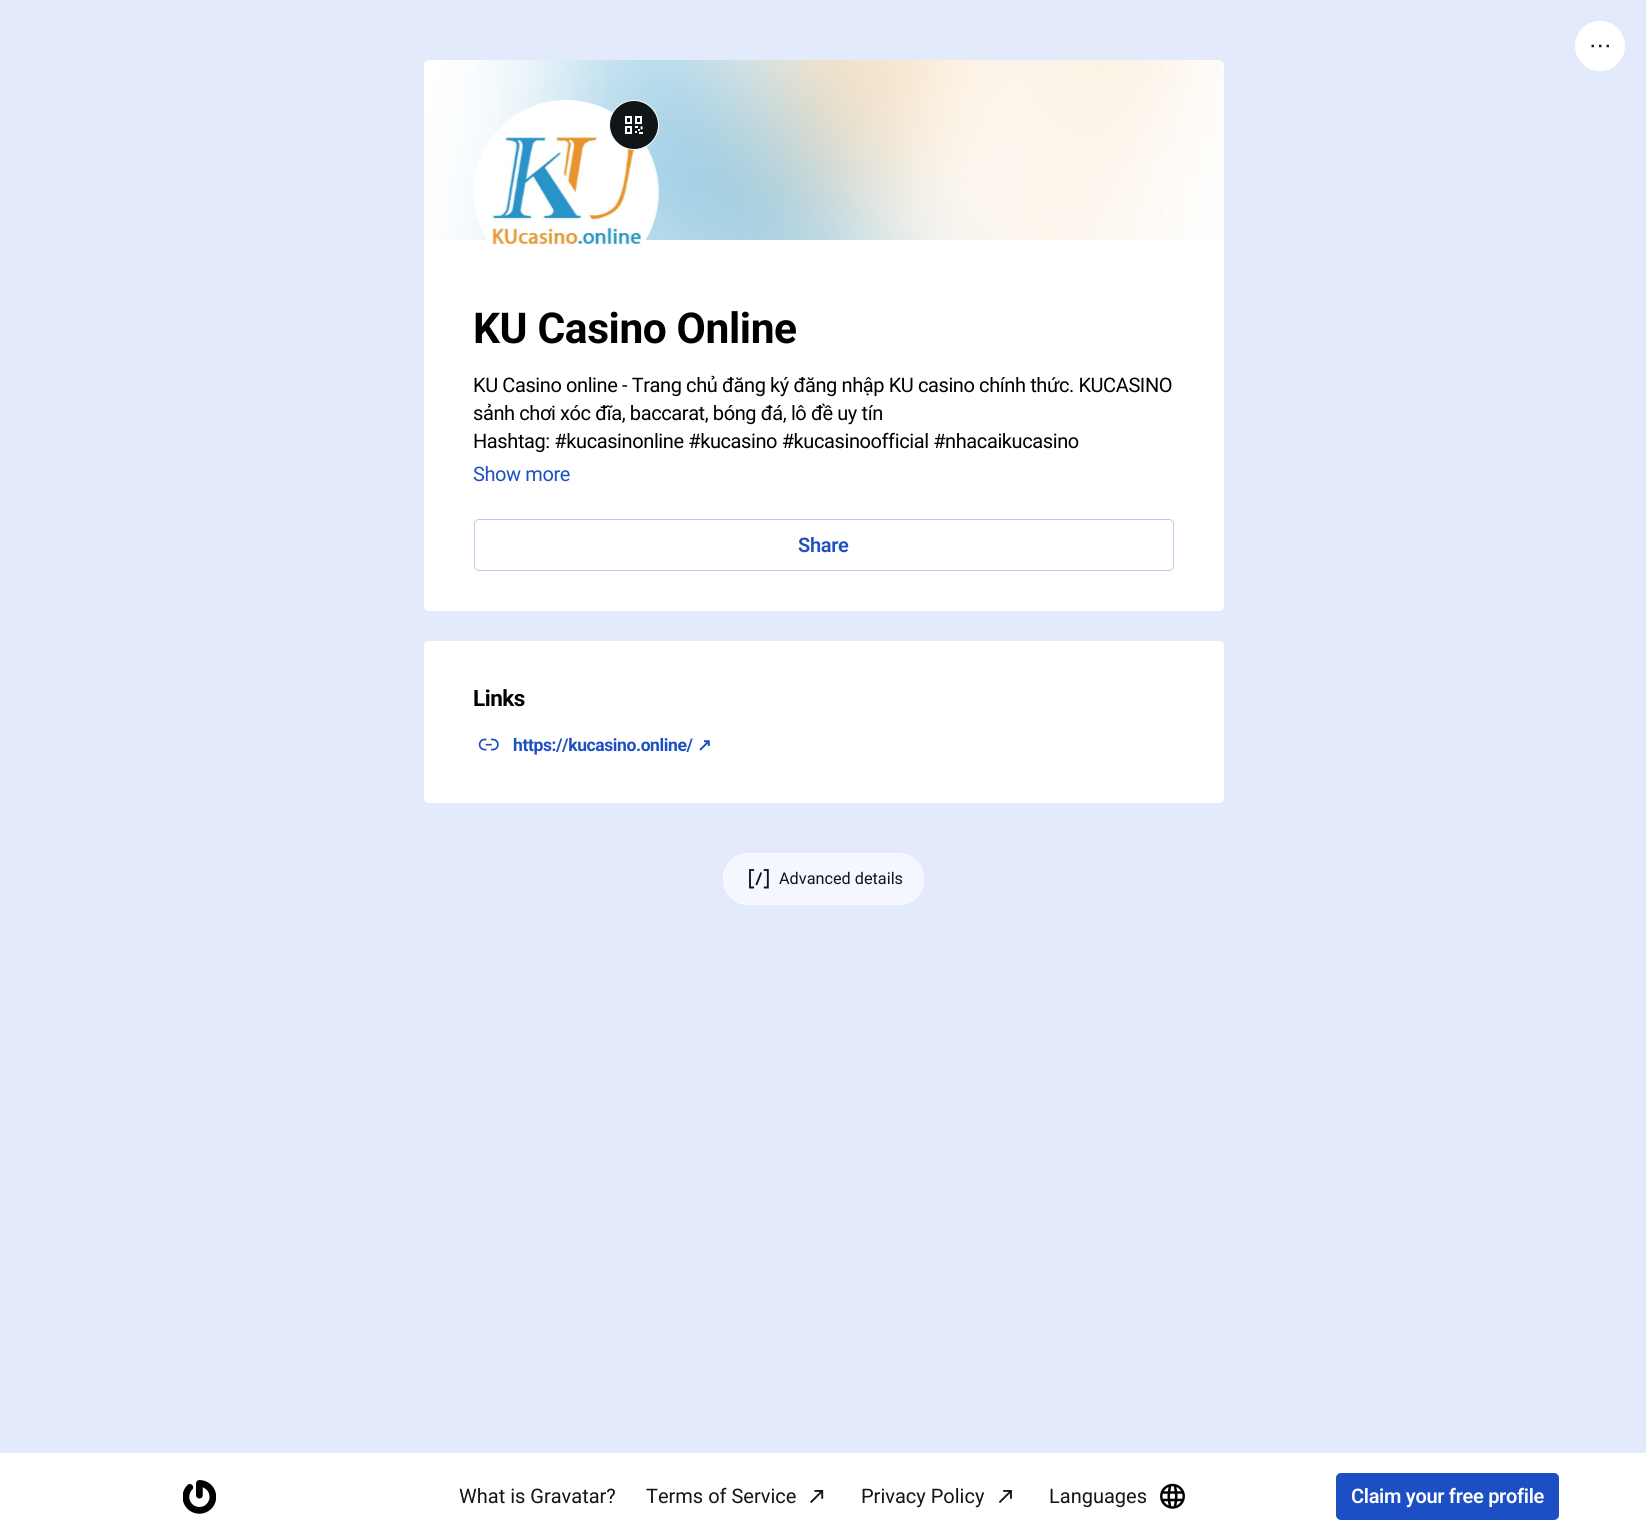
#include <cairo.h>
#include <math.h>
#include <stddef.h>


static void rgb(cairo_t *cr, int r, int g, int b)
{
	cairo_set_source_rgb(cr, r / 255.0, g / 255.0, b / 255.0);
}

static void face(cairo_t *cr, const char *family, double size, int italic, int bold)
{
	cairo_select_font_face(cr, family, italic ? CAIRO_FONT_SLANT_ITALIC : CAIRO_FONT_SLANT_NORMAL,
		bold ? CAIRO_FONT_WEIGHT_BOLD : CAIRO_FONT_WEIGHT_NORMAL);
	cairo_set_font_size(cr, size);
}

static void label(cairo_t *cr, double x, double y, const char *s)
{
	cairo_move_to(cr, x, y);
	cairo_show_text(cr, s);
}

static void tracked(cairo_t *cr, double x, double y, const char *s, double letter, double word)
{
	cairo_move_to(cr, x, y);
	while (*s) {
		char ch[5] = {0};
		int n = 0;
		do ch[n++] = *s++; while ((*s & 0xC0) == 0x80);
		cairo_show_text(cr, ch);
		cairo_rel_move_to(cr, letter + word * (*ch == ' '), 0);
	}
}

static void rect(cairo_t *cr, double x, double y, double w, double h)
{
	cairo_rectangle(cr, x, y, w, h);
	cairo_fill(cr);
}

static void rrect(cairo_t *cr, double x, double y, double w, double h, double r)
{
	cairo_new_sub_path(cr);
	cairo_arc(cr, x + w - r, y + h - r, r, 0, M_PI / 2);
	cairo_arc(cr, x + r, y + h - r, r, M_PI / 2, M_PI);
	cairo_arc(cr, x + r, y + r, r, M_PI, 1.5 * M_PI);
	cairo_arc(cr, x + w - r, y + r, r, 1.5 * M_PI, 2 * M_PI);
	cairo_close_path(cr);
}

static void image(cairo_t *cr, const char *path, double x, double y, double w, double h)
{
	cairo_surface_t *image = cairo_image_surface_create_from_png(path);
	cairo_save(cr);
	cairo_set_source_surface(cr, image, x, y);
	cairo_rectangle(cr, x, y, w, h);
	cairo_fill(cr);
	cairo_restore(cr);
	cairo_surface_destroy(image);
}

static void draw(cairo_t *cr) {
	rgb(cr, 255, 255, 255);
	cairo_paint(cr);
	rgb(cr, 227, 234, 252);
	rect(cr, 0, 0, 1646, 1453);
	rgb(cr, 255, 255, 255);
	cairo_arc(cr, 1600, 46, 25, 0, 2 * M_PI);
	cairo_fill(cr);
	cairo_new_path(cr);
	cairo_move_to(cr, 1601.5, 46);
	cairo_line_to(cr, 1599, 46);
	cairo_move_to(cr, 1609, 46);
	cairo_line_to(cr, 1606.5, 46);
	cairo_move_to(cr, 1594, 46);
	cairo_line_to(cr, 1591.5, 46);
	rgb(cr, 30, 30, 30);
	cairo_set_line_width(cr, 2.5);
	cairo_stroke(cr);
	rgb(cr, 255, 255, 255);
	rrect(cr, 424, 60, 800, 551, 5);
	cairo_fill(cr);
	image(cr, "image0.png", 424, 60, 799, 180);
	image(cr, "image1.png", 474, 100, 185, 145);
	rgb(cr, 16, 21, 23);
	cairo_arc(cr, 634, 125, 24.5, 0, 2 * M_PI);
	cairo_fill_preserve(cr);
	rgb(cr, 255, 255, 255);
	cairo_set_line_width(cr, 1);
	cairo_stroke(cr);
	image(cr, "image2.png", 625, 116, 18, 18);
	face(cr, "Roboto", 42.5, 0, 1);
	rgb(cr, 0, 0, 0);
	tracked(cr, 473, 343, "KU Casino Online", -0.4, 0);
	face(cr, "Roboto", 20, 0, 0);
	tracked(cr, 473, 392, "KU Casino online - Trang chủ đăng ký đăng nhập KU casino chính thức. KUCASINO", -0.4, 0);
	tracked(cr, 473, 420, "sảnh chơi xóc đĩa, baccarat, bóng đá, lô đề uy tín", -0.4, 0);
	tracked(cr, 473, 448, "Hashtag: #kucasinonline #kucasino #kucasinoofficial #nhacaikucasino", -0.4, 0);
	rgb(cr, 29, 79, 196);
	tracked(cr, 473, 481, "Show more", -0.4, 0);
	rrect(cr, 474.5, 519.5, 699, 51, 4.5);
	rgb(cr, 187, 202, 237);
	cairo_stroke(cr);
	face(cr, "Roboto SemiBold", 20, 0, 0);
	rgb(cr, 29, 79, 196);
	tracked(cr, 798, 552, "Share", -0.3, 0);
	rgb(cr, 255, 255, 255);
	rrect(cr, 424, 641, 800, 162, 5);
	cairo_fill(cr);
	face(cr, "Roboto", 22.5, 0, 1);
	rgb(cr, 0, 0, 0);
	tracked(cr, 473, 706, "Links", -0.5, 0);
	image(cr, "image3.png", 478, 738, 21, 13);
	face(cr, "Roboto", 17.5, 0, 1);
	rgb(cr, 29, 79, 196);
	tracked(cr, 513, 751, "https://kucasino.online/", -0.4, 0);
	face(cr, "DejaVu Sans", 17.5, 0, 1);
	tracked(cr, 697, 751, "↗", -0.4, 0);
	rgb(cr, 244, 247, 254);
	rrect(cr, 723, 853, 201, 52, 25);
	cairo_fill(cr);
	rrect(cr, 723.5, 853.5, 200, 51, 24.5);
	cairo_set_source_rgba(cr, 1, 1, 1, 0.4);
	cairo_stroke(cr);
	image(cr, "image4.png", 749, 869, 20, 20);
	face(cr, "Roboto", 16.25, 0, 0);
	rgb(cr, 16, 21, 23);
	label(cr, 779, 884, "Advanced details");
	image(cr, "image5.png", 183, 1480, 33, 34);
	face(cr, "Roboto", 20, 0, 0);
	label(cr, 459, 1503, "What is Gravatar?");
	label(cr, 646, 1503, "Terms of Service");
	image(cr, "image6.png", 810, 1490, 14, 14);
	label(cr, 861, 1503, "Privacy Policy");
	image(cr, "image7.png", 998, 1490, 14, 14);
	label(cr, 1049, 1503, "Languages");
	image(cr, "image8.png", 1160, 1483, 25, 26);
	rgb(cr, 29, 79, 196);
	rrect(cr, 1336, 1473, 223, 47, 5);
	cairo_fill(cr);
	face(cr, "Roboto SemiBold", 20, 0, 0);
	rgb(cr, 255, 255, 255);
	tracked(cr, 1351, 1503, "Claim your free profile", -0.3, 0);
}

int main(void) {
	cairo_surface_t *surface = cairo_image_surface_create(CAIRO_FORMAT_RGB24, 1646, 1539);
	cairo_t *cr = cairo_create(surface);
	cairo_font_options_t *options = cairo_font_options_create();
	cairo_font_options_set_hint_metrics(options, CAIRO_HINT_METRICS_OFF);
	cairo_font_options_set_hint_style(options, CAIRO_HINT_STYLE_NONE);
	cairo_set_font_options(cr, options);
	cairo_set_miter_limit(cr, 4);
	draw(cr);
	cairo_surface_write_to_png(surface, "render.png");
	cairo_font_options_destroy(options);
	cairo_destroy(cr);
	cairo_surface_destroy(surface);
	return 0;
}
